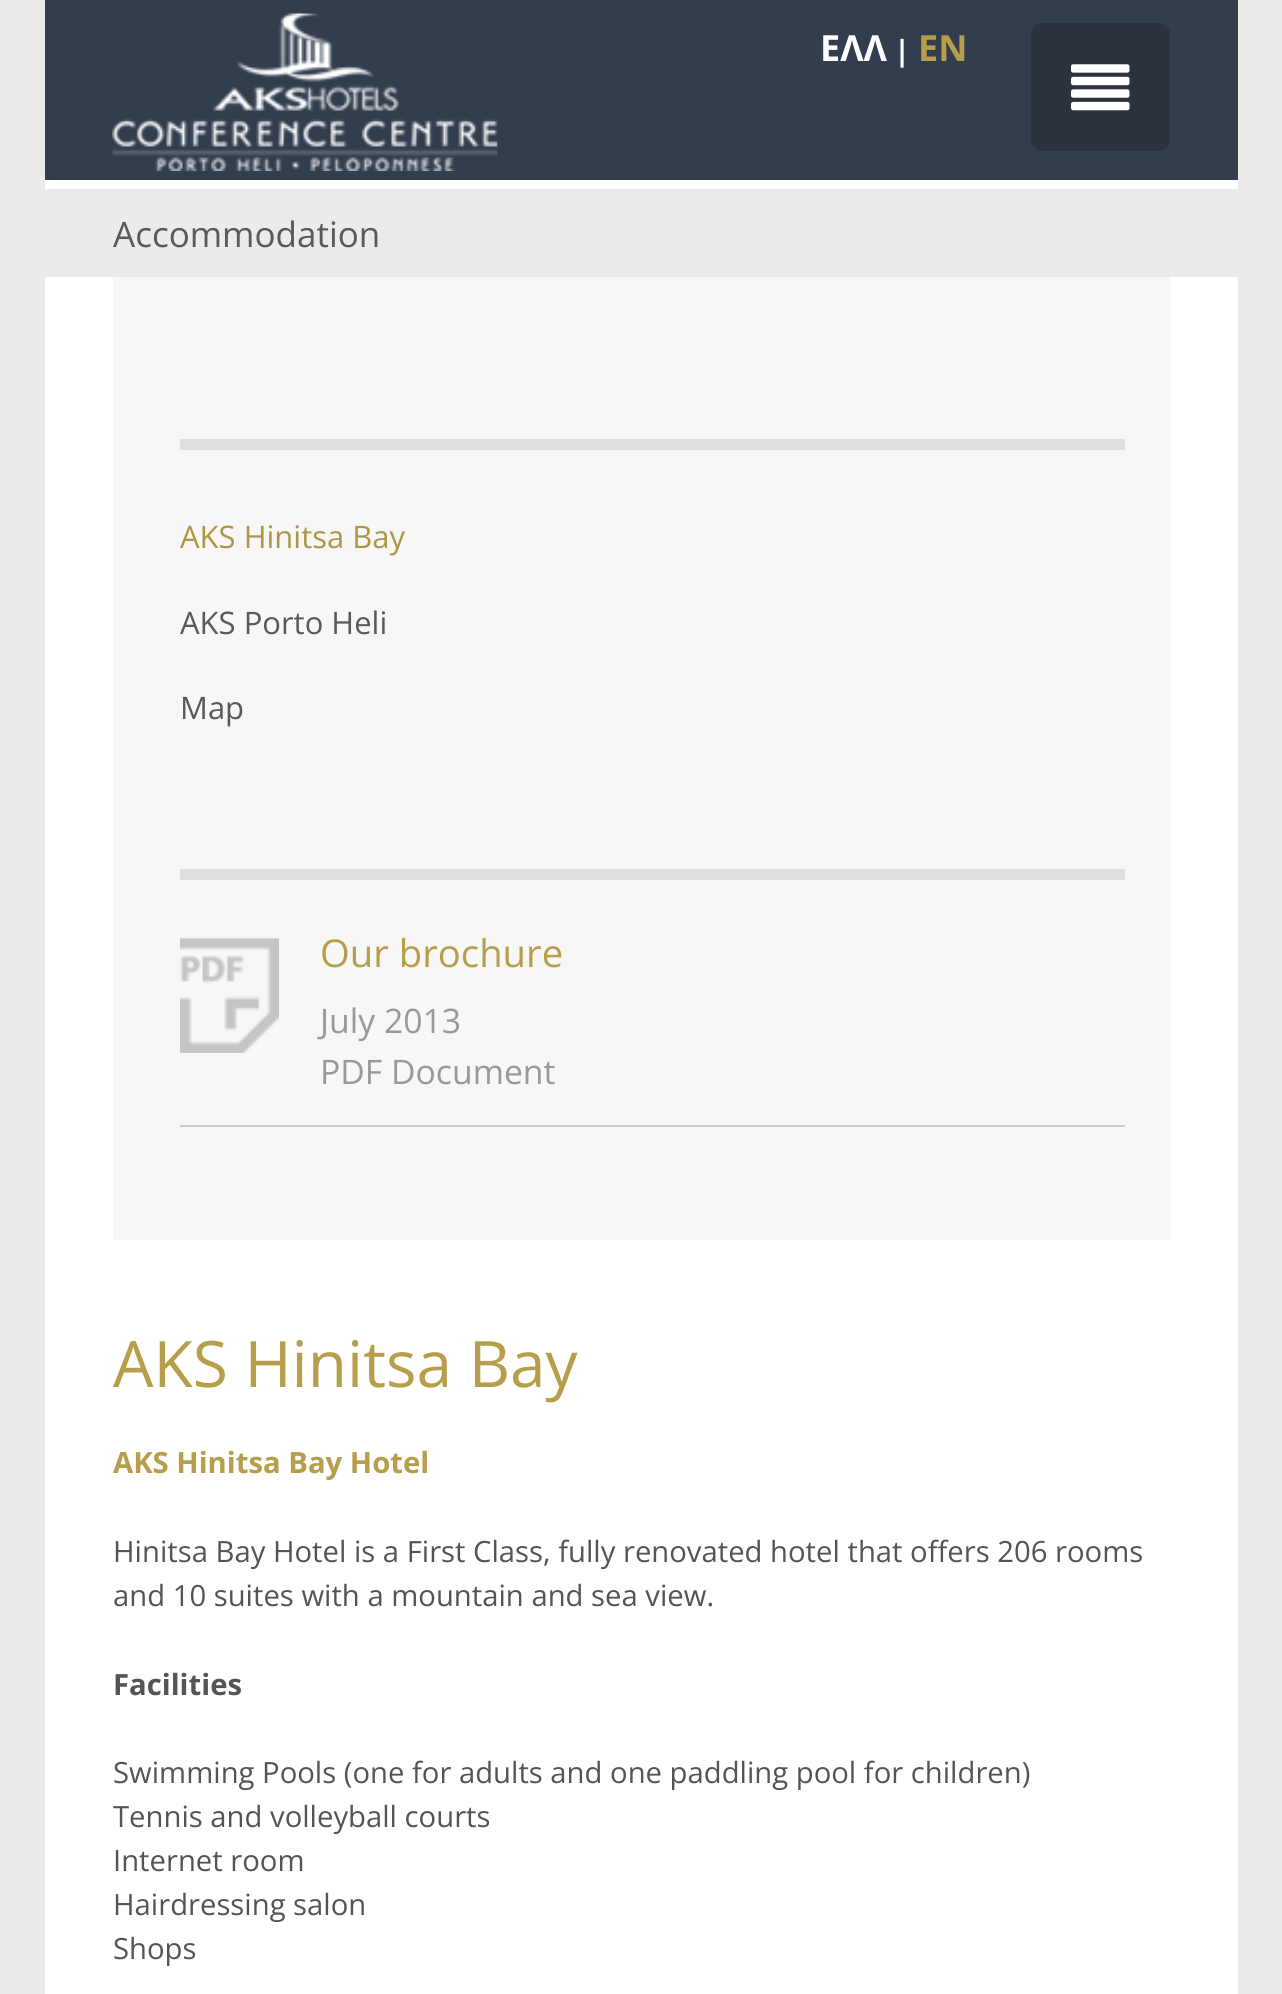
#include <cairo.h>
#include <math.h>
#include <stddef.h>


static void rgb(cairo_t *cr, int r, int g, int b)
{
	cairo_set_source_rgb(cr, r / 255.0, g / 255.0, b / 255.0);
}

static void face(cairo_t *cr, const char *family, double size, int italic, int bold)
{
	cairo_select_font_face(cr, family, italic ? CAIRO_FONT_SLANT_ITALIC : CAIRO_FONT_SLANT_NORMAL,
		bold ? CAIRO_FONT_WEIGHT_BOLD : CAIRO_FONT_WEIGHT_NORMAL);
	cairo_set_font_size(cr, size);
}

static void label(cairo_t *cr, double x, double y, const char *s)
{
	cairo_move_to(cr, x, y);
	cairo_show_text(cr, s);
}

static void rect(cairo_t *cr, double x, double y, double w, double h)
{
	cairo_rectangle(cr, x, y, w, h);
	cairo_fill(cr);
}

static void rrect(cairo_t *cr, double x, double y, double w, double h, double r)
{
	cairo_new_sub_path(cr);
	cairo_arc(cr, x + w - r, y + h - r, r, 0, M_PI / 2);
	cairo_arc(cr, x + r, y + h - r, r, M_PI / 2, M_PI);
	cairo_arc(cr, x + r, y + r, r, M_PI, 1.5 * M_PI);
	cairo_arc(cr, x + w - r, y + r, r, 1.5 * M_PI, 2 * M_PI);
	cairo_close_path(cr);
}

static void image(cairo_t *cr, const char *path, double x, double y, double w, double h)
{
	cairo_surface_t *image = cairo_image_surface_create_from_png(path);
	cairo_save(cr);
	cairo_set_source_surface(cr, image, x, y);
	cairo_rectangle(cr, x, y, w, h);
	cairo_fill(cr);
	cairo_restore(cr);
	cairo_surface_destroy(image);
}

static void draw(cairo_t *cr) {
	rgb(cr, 236, 235, 233);
	cairo_paint(cr);
	rgb(cr, 50, 62, 78);
	rect(cr, 45, 0, 1193, 180);
	rgb(cr, 255, 255, 255);
	rect(cr, 45, 180, 1193, 9);
	image(cr, "image0.png", 112, 13, 386, 158);
	face(cr, "Open Sans", 36, 0, 1);
	label(cr, 820, 61, "EΛΛ");
	face(cr, "Open Sans", 29.25, 0, 1);
	label(cr, 894, 61, "|");
	face(cr, "Open Sans", 36, 0, 1);
	rgb(cr, 183, 158, 74);
	label(cr, 918, 61, "EN");
	rgb(cr, 43, 51, 62);
	rrect(cr, 1031, 23, 139, 128, 11);
	cairo_fill(cr);
	image(cr, "image1.png", 1071, 64, 59, 47);
	face(cr, "Open Sans", 35, 0, 0);
	rgb(cr, 88, 89, 91);
	label(cr, 113, 247, "Accommodation");
	rgb(cr, 255, 255, 255);
	rect(cr, 45, 277, 1193, 1717);
	rgb(cr, 247, 247, 247);
	rect(cr, 113, 277, 1057, 963);
	rgb(cr, 223, 223, 223);
	rect(cr, 180, 439, 945, 11);
	face(cr, "Open Sans", 31, 0, 0);
	rgb(cr, 173, 150, 70);
	label(cr, 180, 548, "AKS Hinitsa Bay");
	rgb(cr, 88, 89, 91);
	label(cr, 180, 634, "AKS Porto Heli");
	label(cr, 180, 719, "Map");
	rgb(cr, 223, 223, 223);
	rect(cr, 180, 869, 945, 11);
	rgb(cr, 204, 204, 204);
	rect(cr, 180, 1125, 945, 2);
	image(cr, "image2.png", 180, 937, 99, 116);
	face(cr, "Open Sans", 38.25, 0, 0);
	rgb(cr, 183, 158, 74);
	label(cr, 320, 967, "Our brochure");
	face(cr, "Open Sans", 33.75, 0, 0);
	rgb(cr, 153, 153, 153);
	label(cr, 320, 1033, "July 2013");
	label(cr, 320, 1084, "PDF Document");
	face(cr, "Open Sans", 64, 0, 0);
	rgb(cr, 183, 158, 74);
	label(cr, 113, 1387, "AKS Hinitsa Bay");
	face(cr, "Open Sans", 29.25, 0, 1);
	label(cr, 113, 1473, "AKS Hinitsa Bay Hotel");
	face(cr, "Open Sans", 29.25, 0, 0);
	rgb(cr, 86, 83, 83);
	label(cr, 113, 1562, "Hinitsa Bay Hotel is a First Class, fully renovated hotel that offers 206 rooms");
	label(cr, 113, 1606, "and 10 suites with a mountain and sea view.");
	face(cr, "Open Sans", 29.25, 0, 1);
	label(cr, 113, 1695, "Facilities");
	face(cr, "Open Sans", 29.25, 0, 0);
	label(cr, 113, 1783, "Swimming Pools (one for adults and one paddling pool for children)");
	cairo_save(cr);
	cairo_rectangle(cr, 113, 277, 1057, 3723);
	cairo_clip(cr);
	label(cr, 113, 1827, "Tennis and volleyball courts");
	cairo_restore(cr);
	label(cr, 113, 1871, "Internet room");
	label(cr, 113, 1915, "Hairdressing salon");
	label(cr, 113, 1959, "Shops");
}

int main(void) {
	cairo_surface_t *surface = cairo_image_surface_create(CAIRO_FORMAT_RGB24, 1282, 1994);
	cairo_t *cr = cairo_create(surface);
	cairo_font_options_t *options = cairo_font_options_create();
	cairo_font_options_set_hint_metrics(options, CAIRO_HINT_METRICS_OFF);
	cairo_font_options_set_hint_style(options, CAIRO_HINT_STYLE_NONE);
	cairo_set_font_options(cr, options);
	cairo_set_miter_limit(cr, 4);
	draw(cr);
	cairo_surface_write_to_png(surface, "render.png");
	cairo_font_options_destroy(options);
	cairo_destroy(cr);
	cairo_surface_destroy(surface);
	return 0;
}
